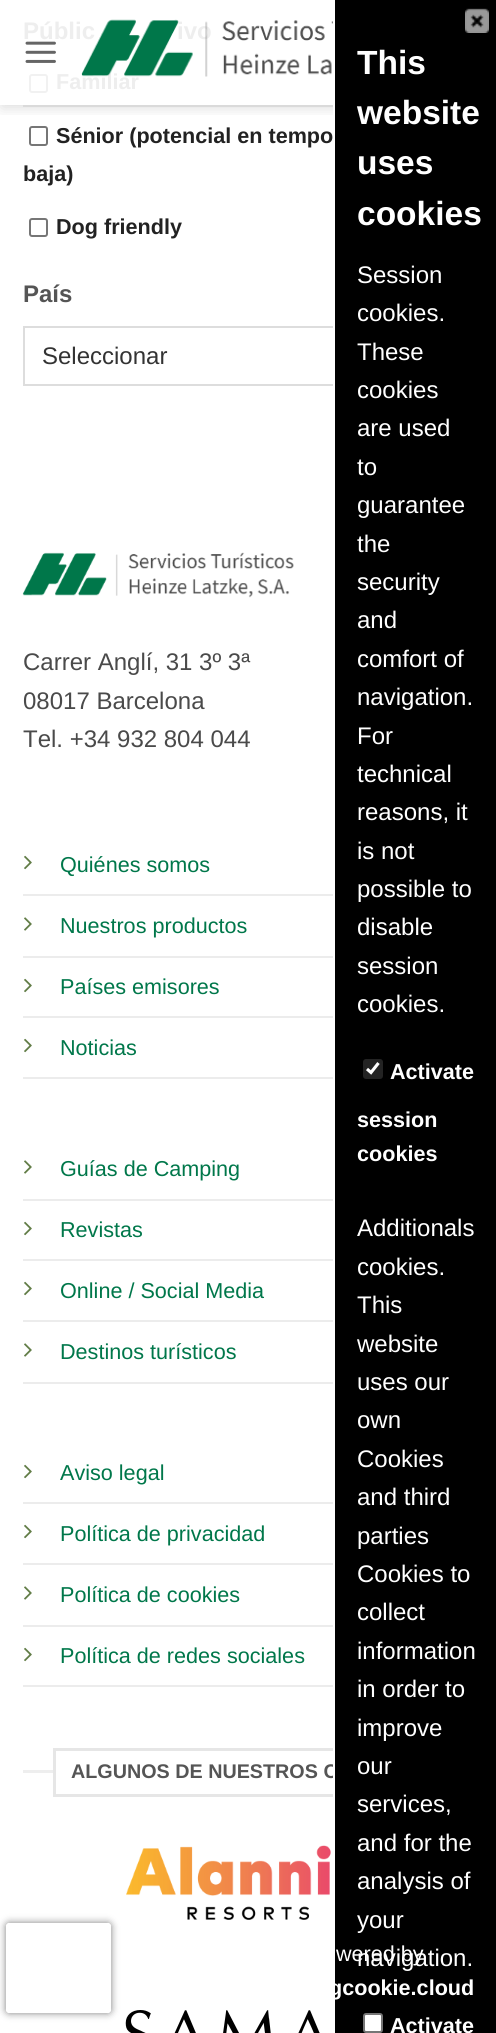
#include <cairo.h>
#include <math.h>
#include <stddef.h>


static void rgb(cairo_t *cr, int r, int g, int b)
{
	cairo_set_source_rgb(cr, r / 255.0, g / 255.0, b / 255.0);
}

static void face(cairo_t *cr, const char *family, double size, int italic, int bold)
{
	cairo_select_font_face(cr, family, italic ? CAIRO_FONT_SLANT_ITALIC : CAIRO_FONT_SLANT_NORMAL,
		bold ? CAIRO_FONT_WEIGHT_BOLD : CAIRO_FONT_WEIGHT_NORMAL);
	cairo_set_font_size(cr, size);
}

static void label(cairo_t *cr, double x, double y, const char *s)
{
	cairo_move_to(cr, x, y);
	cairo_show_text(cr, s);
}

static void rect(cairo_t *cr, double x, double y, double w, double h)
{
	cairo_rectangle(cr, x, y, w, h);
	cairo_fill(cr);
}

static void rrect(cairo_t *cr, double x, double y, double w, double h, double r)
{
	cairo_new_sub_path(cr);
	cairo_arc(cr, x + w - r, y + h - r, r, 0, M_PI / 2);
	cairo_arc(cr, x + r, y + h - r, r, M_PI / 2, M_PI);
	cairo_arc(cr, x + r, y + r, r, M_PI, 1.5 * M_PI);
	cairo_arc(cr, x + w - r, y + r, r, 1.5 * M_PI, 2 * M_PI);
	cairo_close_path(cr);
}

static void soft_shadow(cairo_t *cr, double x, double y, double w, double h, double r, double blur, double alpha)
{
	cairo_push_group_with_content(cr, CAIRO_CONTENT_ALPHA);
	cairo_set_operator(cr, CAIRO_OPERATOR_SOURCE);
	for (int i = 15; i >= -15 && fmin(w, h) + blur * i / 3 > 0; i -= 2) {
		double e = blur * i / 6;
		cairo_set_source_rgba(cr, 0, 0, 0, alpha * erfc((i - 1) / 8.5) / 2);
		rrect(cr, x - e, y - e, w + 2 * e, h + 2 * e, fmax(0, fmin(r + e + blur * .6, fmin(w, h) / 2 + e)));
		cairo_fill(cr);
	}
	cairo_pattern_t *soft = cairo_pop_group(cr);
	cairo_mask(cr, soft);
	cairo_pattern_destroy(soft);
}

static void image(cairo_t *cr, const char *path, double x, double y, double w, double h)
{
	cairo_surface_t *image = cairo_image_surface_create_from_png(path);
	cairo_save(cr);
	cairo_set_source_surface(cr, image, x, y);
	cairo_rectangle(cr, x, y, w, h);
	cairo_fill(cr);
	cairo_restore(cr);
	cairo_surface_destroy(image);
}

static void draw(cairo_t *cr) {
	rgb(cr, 255, 255, 255);
	cairo_paint(cr);
	rrect(cr, 30, 75, 17, 17, 2);
	rgb(cr, 241, 241, 241);
	cairo_stroke(cr);
	rrect(cr, 30, 127, 17, 18, 2);
	rgb(cr, 118, 118, 118);
	cairo_stroke(cr);
	cairo_save(cr);
	cairo_rectangle(cr, 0, 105, 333, 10);
	cairo_clip(cr);
	rgb(cr, 0, 0, 0);
	soft_shadow(cr, 2, 2, 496, 105, 0, 7.5, 0.15);
	cairo_restore(cr);
	image(cr, "image0.png", 25, 41, 31, 22);
	face(cr, "Liberation Sans", 24, 0, 1);
	rgb(cr, 238, 238, 238);
	label(cr, 23, 39, "Públic");
	label(cr, 177, 39, "ivo");
	face(cr, "Liberation Sans", 21.6, 0, 1);
	label(cr, 56, 89, "Familiar");
	image(cr, "image1.png", 81, 19, 252, 58);
	rgb(cr, 218, 218, 218);
	rect(cr, 23, 105, 310, 2);
	rgb(cr, 34, 34, 34);
	label(cr, 56, 143, "Sénior (potencial en tempo");
	label(cr, 23, 181, "baja)");
	rrect(cr, 30, 219, 17, 17, 2);
	rgb(cr, 118, 118, 118);
	cairo_stroke(cr);
	rgb(cr, 34, 34, 34);
	label(cr, 56, 234, "Dog friendly");
	face(cr, "Liberation Sans", 24, 0, 1);
	rgb(cr, 85, 85, 85);
	label(cr, 23, 302, "País");
	cairo_rectangle(cr, 24, 327, 449, 58);
	rgb(cr, 221, 221, 221);
	cairo_stroke(cr);
	face(cr, "Liberation Sans", 24, 0, 0);
	rgb(cr, 51, 51, 51);
	label(cr, 42, 364, "Seleccionar");
	image(cr, "image2.png", 22, 552, 272, 46);
	rgb(cr, 74, 74, 74);
	label(cr, 23, 670, "Carrer Anglí, 31 3º 3ª");
	label(cr, 23, 709, "08017 Barcelona");
	label(cr, 23, 747, "Tel. +34 932 804 044");
	rgb(cr, 236, 236, 236);
	rect(cr, 23, 894, 310, 2);
	image(cr, "image3.png", 24, 855, 8, 15);
	face(cr, "Liberation Sans", 21.6, 0, 0);
	rgb(cr, 0, 119, 74);
	label(cr, 60, 872, "Quiénes somos");
	rgb(cr, 236, 236, 236);
	rect(cr, 23, 956, 310, 2);
	image(cr, "image4.png", 24, 917, 8, 14);
	rgb(cr, 0, 119, 74);
	label(cr, 60, 933, "Nuestros productos");
	rgb(cr, 236, 236, 236);
	rect(cr, 23, 1016, 310, 2);
	image(cr, "image3.png", 24, 978, 8, 15);
	rgb(cr, 0, 119, 74);
	label(cr, 60, 994, "Países emisores");
	rgb(cr, 236, 236, 236);
	rect(cr, 23, 1077, 310, 2);
	image(cr, "image3.png", 24, 1038, 8, 15);
	rgb(cr, 0, 119, 74);
	label(cr, 60, 1055, "Noticias");
	rgb(cr, 236, 236, 236);
	rect(cr, 23, 1199, 310, 2);
	image(cr, "image4.png", 24, 1160, 8, 14);
	rgb(cr, 0, 119, 74);
	label(cr, 60, 1176, "Guías de Camping");
	rgb(cr, 236, 236, 236);
	rect(cr, 23, 1259, 310, 2);
	image(cr, "image3.png", 24, 1221, 8, 15);
	rgb(cr, 0, 119, 74);
	label(cr, 60, 1237, "Revistas");
	rgb(cr, 236, 236, 236);
	rect(cr, 23, 1320, 310, 2);
	image(cr, "image3.png", 24, 1281, 8, 15);
	rgb(cr, 0, 119, 74);
	label(cr, 60, 1298, "Online / Social Media");
	rgb(cr, 236, 236, 236);
	rect(cr, 23, 1382, 310, 2);
	image(cr, "image4.png", 24, 1343, 8, 14);
	rgb(cr, 0, 119, 74);
	label(cr, 60, 1359, "Destinos turísticos");
	rgb(cr, 236, 236, 236);
	rect(cr, 23, 1502, 310, 2);
	image(cr, "image3.png", 24, 1464, 8, 15);
	rgb(cr, 0, 119, 74);
	label(cr, 60, 1480, "Aviso legal");
	rgb(cr, 236, 236, 236);
	rect(cr, 23, 1563, 310, 2);
	image(cr, "image3.png", 24, 1524, 8, 15);
	rgb(cr, 0, 119, 74);
	label(cr, 60, 1541, "Política de privacidad");
	rgb(cr, 236, 236, 236);
	rect(cr, 23, 1625, 310, 2);
	image(cr, "image4.png", 24, 1586, 8, 14);
	rgb(cr, 0, 119, 74);
	label(cr, 60, 1602, "Política de cookies");
	rgb(cr, 236, 236, 236);
	rect(cr, 23, 1685, 310, 2);
	image(cr, "image3.png", 24, 1647, 8, 15);
	rgb(cr, 0, 119, 74);
	label(cr, 60, 1663, "Política de redes sociales");
	rgb(cr, 238, 238, 238);
	rect(cr, 23, 1770, 30, 3);
	cairo_rectangle(cr, 54.5, 1749.5, 388, 46);
	rgb(cr, 230, 230, 230);
	cairo_set_line_width(cr, 3);
	cairo_stroke(cr);
	face(cr, "Liberation Sans", 19.75, 0, 1);
	rgb(cr, 85, 85, 85);
	label(cr, 71, 1778, "ALGUNOS DE NUESTROS C");
	image(cr, "image5.png", 126, 1845, 205, 75);
	image(cr, "image6.png", 125, 2010, 195, 23);
	rgb(cr, 0, 0, 0);
	rect(cr, 335, 0, 161, 2033);
	rgb(cr, 255, 255, 255);
	rect(cr, 333, 105, 2, 1692);
	image(cr, "image7.png", 465, 8, 24, 25);
	face(cr, "Liberation Sans", 33.5, 0, 1);
	label(cr, 357, 74, "This");
	label(cr, 357, 124, "website");
	label(cr, 357, 174, "uses");
	label(cr, 357, 225, "cookies");
	face(cr, "Liberation Sans", 24, 0, 0);
	label(cr, 357, 283, "Session");
	label(cr, 357, 321, "cookies.");
	label(cr, 357, 360, "These");
	label(cr, 357, 398, "cookies");
	label(cr, 357, 436, "are used");
	label(cr, 357, 475, "to");
	label(cr, 357, 513, "guarantee");
	label(cr, 357, 552, "the");
	label(cr, 357, 590, "security");
	label(cr, 357, 628, "and");
	label(cr, 357, 667, "comfort of");
	label(cr, 357, 705, "navigation.");
	label(cr, 357, 744, "For");
	label(cr, 357, 782, "technical");
	label(cr, 357, 820, "reasons, it");
	label(cr, 357, 859, "is not");
	label(cr, 357, 897, "possible to");
	label(cr, 357, 935, "disable");
	label(cr, 357, 974, "session");
	label(cr, 357, 1012, "cookies.");
	rgb(cr, 35, 35, 35);
	rrect(cr, 363, 1059, 20, 20, 3);
	cairo_fill(cr);
	cairo_new_path(cr);
	cairo_move_to(cr, 367, 1069);
	cairo_line_to(cr, 371, 1072.5);
	cairo_line_to(cr, 378.5, 1063);
	rgb(cr, 255, 255, 255);
	cairo_set_line_width(cr, 3.1);
	cairo_stroke(cr);
	face(cr, "Liberation Sans", 21.6, 0, 1);
	label(cr, 390, 1079, "Activate");
	label(cr, 357, 1127, "session");
	label(cr, 357, 1161, "cookies");
	face(cr, "Liberation Sans", 24, 0, 0);
	label(cr, 357, 1236, "Additionals");
	label(cr, 357, 1275, "cookies.");
	label(cr, 357, 1313, "This");
	label(cr, 357, 1352, "website");
	label(cr, 357, 1390, "uses our");
	label(cr, 357, 1428, "own");
	label(cr, 357, 1467, "Cookies");
	label(cr, 357, 1505, "and third");
	label(cr, 357, 1544, "parties");
	label(cr, 357, 1582, "Cookies to");
	label(cr, 357, 1620, "collect");
	label(cr, 357, 1659, "information");
	label(cr, 357, 1697, "in order to");
	label(cr, 357, 1736, "improve");
	label(cr, 357, 1774, "our");
	label(cr, 357, 1812, "services,");
	label(cr, 357, 1851, "and for the");
	label(cr, 357, 1889, "analysis of");
	label(cr, 357, 1928, "your");
	label(cr, 357, 1966, "navigation.");
	face(cr, "Liberation Sans", 21.6, 0, 0);
	label(cr, 336, 1961, "wered by");
	face(cr, "Liberation Sans", 21.6, 0, 1);
	label(cr, 329, 1995, "gcookie.cloud");
	rrect(cr, 364, 2014, 18, 18, 2);
	cairo_fill_preserve(cr);
	rgb(cr, 118, 118, 118);
	cairo_set_line_width(cr, 2);
	cairo_stroke(cr);
	rgb(cr, 255, 255, 255);
	label(cr, 390, 2033, "Activate");
	cairo_save(cr);
	cairo_set_fill_rule(cr, CAIRO_FILL_RULE_EVEN_ODD);
	cairo_new_path(cr);
	cairo_move_to(cr, 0, 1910);
	cairo_line_to(cr, 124, 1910);
	cairo_line_to(cr, 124, 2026);
	cairo_line_to(cr, 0, 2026);
	cairo_close_path(cr);
	cairo_move_to(cr, 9, 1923);
	cairo_line_to(cr, 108, 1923);
	cairo_curve_to(cr, 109.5, 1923, 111, 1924.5, 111, 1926);
	cairo_line_to(cr, 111, 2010);
	cairo_curve_to(cr, 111, 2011.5, 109.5, 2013, 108, 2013);
	cairo_line_to(cr, 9, 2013);
	cairo_curve_to(cr, 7.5, 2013, 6, 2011.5, 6, 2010);
	cairo_line_to(cr, 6, 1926);
	cairo_curve_to(cr, 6, 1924.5, 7.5, 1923, 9, 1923);
	cairo_close_path(cr);
	cairo_clip(cr);
	rgb(cr, 128, 128, 128);
	soft_shadow(cr, 6, 1923, 105, 90, 3, 4, 1);
	cairo_restore(cr);
}

int main(void) {
	cairo_surface_t *surface = cairo_image_surface_create(CAIRO_FORMAT_RGB24, 496, 2033);
	cairo_t *cr = cairo_create(surface);
	cairo_font_options_t *options = cairo_font_options_create();
	cairo_font_options_set_hint_metrics(options, CAIRO_HINT_METRICS_OFF);
	cairo_font_options_set_hint_style(options, CAIRO_HINT_STYLE_NONE);
	cairo_set_font_options(cr, options);
	cairo_set_miter_limit(cr, 4);
	draw(cr);
	cairo_surface_write_to_png(surface, "render.png");
	cairo_font_options_destroy(options);
	cairo_destroy(cr);
	cairo_surface_destroy(surface);
	return 0;
}
